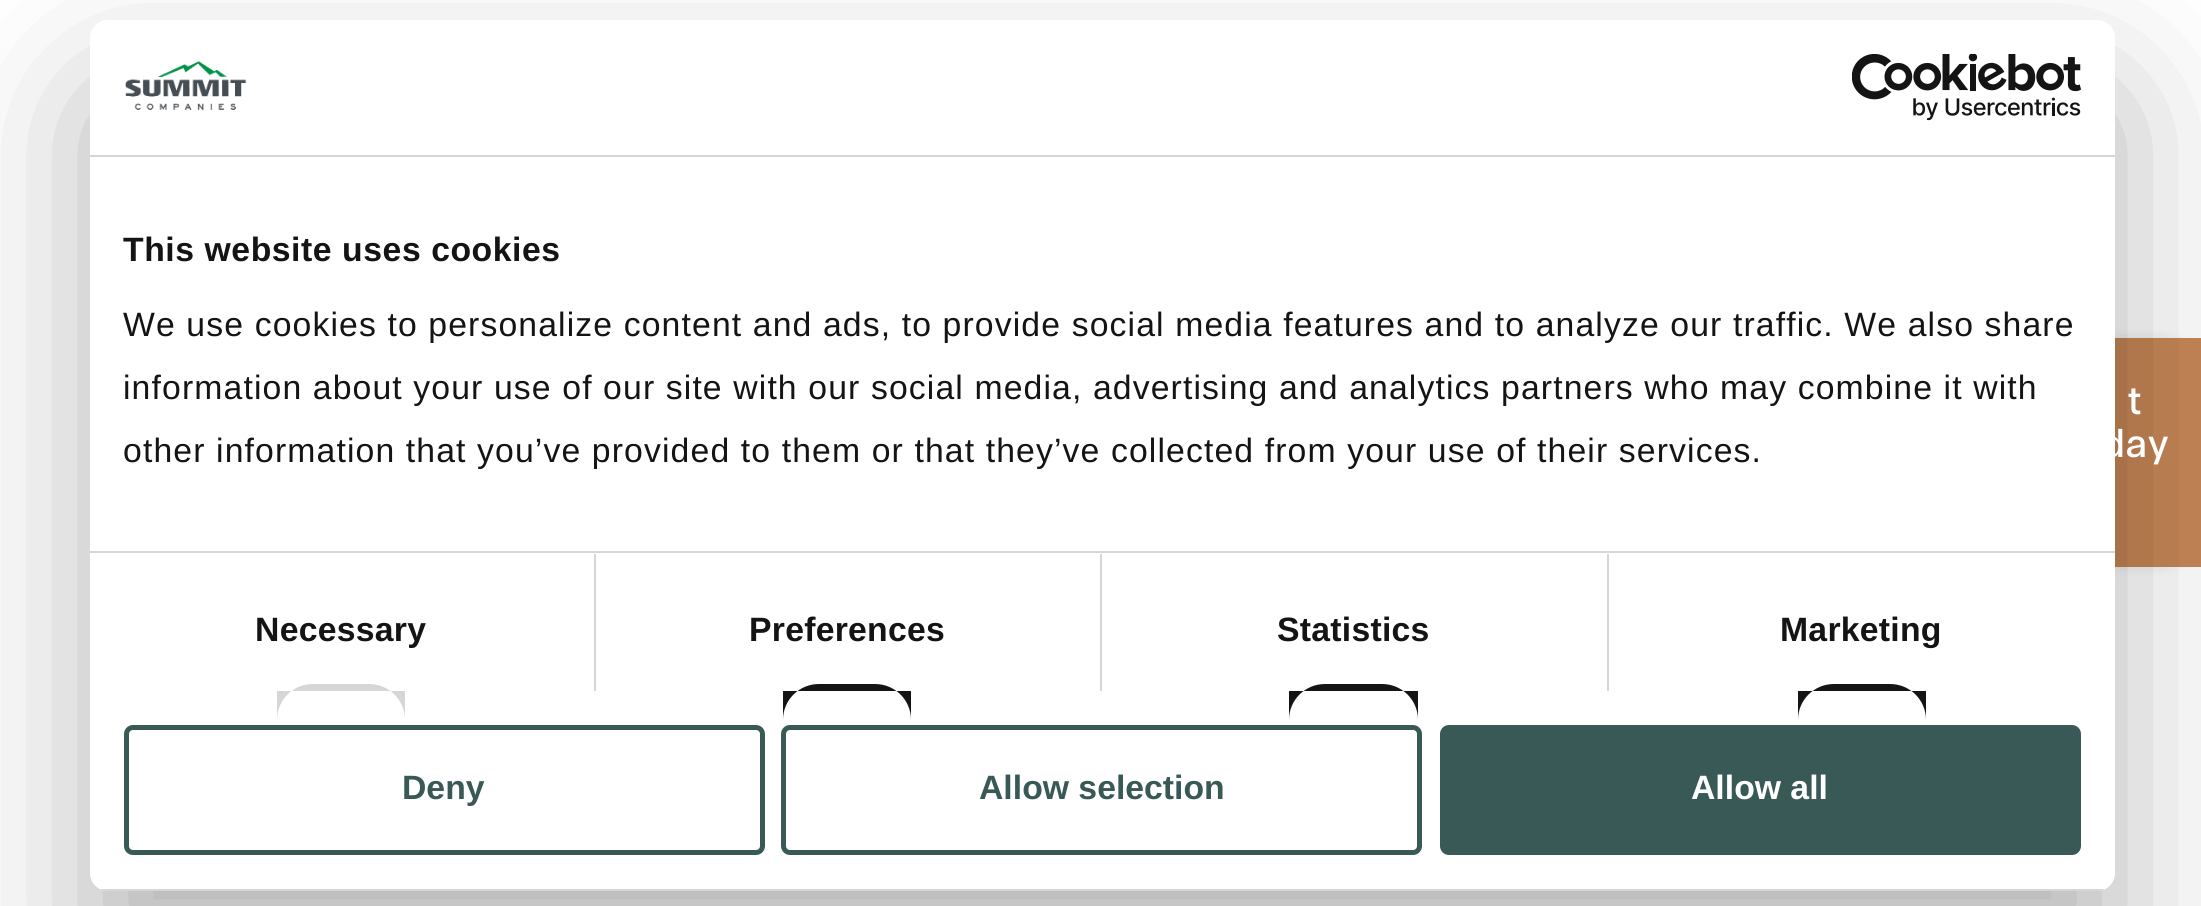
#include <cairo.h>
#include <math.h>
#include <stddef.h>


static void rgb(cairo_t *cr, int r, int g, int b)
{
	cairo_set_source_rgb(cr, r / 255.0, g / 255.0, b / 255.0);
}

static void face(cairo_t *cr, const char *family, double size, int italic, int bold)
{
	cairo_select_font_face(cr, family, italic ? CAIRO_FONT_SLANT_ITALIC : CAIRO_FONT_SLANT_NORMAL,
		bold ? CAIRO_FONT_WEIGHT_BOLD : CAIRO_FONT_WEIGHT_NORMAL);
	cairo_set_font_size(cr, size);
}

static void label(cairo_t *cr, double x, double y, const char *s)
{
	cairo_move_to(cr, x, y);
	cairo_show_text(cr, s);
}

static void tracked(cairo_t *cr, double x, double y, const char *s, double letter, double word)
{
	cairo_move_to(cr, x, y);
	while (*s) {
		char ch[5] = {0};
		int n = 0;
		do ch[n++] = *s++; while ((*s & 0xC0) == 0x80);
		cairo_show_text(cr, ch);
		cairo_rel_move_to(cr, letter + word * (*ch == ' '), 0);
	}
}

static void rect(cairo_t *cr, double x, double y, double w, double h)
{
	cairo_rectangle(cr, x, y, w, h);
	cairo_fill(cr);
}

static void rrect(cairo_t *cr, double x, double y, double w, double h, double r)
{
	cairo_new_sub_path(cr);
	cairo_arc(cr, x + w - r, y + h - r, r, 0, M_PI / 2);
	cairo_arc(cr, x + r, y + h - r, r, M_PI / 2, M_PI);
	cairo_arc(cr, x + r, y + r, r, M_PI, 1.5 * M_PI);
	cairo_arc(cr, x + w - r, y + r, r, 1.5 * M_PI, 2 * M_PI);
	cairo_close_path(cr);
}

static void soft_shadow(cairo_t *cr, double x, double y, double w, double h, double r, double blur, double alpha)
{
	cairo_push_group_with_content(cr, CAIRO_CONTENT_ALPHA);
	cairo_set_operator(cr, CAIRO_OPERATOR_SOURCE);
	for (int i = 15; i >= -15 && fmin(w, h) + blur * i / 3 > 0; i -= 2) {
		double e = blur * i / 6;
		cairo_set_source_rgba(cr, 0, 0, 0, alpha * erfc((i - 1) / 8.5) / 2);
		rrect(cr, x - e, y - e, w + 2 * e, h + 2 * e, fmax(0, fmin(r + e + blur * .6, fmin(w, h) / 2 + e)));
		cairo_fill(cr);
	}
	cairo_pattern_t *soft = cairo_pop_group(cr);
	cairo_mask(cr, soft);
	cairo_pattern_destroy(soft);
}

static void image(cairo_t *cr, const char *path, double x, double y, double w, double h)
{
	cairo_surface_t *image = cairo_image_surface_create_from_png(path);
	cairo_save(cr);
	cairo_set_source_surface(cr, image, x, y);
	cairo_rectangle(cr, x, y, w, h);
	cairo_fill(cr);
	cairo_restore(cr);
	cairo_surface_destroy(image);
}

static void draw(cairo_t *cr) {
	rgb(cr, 255, 255, 255);
	cairo_paint(cr);
	rgb(cr, 0, 0, 0);
	soft_shadow(cr, 1953, 338, 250, 229, 45, 5.5, 0.1);
	rgb(cr, 198, 134, 86);
	rect(cr, 2115, 338, 86, 229);
	rgb(cr, 0, 0, 0);
	soft_shadow(cr, 90, 92, 2025, 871, 18, 76.5, 0.3);
	rgb(cr, 255, 255, 255);
	rrect(cr, 90, 20, 2025, 871, 18);
	cairo_fill(cr);
	rgb(cr, 214, 214, 214);
	rect(cr, 90, 155, 2025, 2);
	image(cr, "image0.png", 125, 61, 122, 49);
	image(cr, "image1.png", 1852, 54, 229, 67);
	rect(cr, 90, 551, 2025, 2);
	face(cr, "Liberation Sans", 33.75, 0, 1);
	rgb(cr, 20, 20, 20);
	tracked(cr, 123, 261, "This website uses cookies", 0.55, 0);
	face(cr, "Liberation Sans", 33.75, 0, 0);
	tracked(cr, 123, 336, "We use cookies to personalize content and ads, to provide social media features and to analyze our traffic. We also share", 1.12, 0);
	tracked(cr, 123, 399, "information about your use of our site with our social media, advertising and analytics partners who may combine it with", 1.12, 0);
	tracked(cr, 123, 462, "other information that you’ve provided to them or that they’ve collected from your use of their services.", 1.12, 0);
	rgb(cr, 214, 214, 214);
	rect(cr, 594, 554, 2, 137);
	face(cr, "Liberation Sans", 33.75, 0, 1);
	rgb(cr, 20, 20, 20);
	tracked(cr, 255, 641, "Necessary", 0.25, 0);
	rgb(cr, 214, 214, 214);
	cairo_new_path(cr);
	cairo_move_to(cr, 313, 684);
	cairo_line_to(cr, 369, 684);
	cairo_curve_to(cr, 389, 684, 405, 700, 405, 720);
	cairo_line_to(cr, 405, 691);
	cairo_line_to(cr, 277, 691);
	cairo_line_to(cr, 277, 720);
	cairo_curve_to(cr, 277, 700, 293, 684, 313, 684);
	cairo_close_path(cr);
	cairo_fill(cr);
	rect(cr, 1100, 554, 2, 137);
	rgb(cr, 20, 20, 20);
	tracked(cr, 749, 641, "Preferences", 0.25, 0);
	cairo_new_path(cr);
	cairo_move_to(cr, 819, 684);
	cairo_line_to(cr, 875, 684);
	cairo_curve_to(cr, 895, 684, 911, 700, 911, 720);
	cairo_line_to(cr, 911, 691);
	cairo_line_to(cr, 783, 691);
	cairo_line_to(cr, 783, 720);
	cairo_curve_to(cr, 783, 700, 799, 684, 819, 684);
	cairo_close_path(cr);
	cairo_fill(cr);
	rgb(cr, 214, 214, 214);
	rect(cr, 1607, 554, 2, 137);
	rgb(cr, 20, 20, 20);
	tracked(cr, 1277, 641, "Statistics", 0.25, 0);
	cairo_new_path(cr);
	cairo_move_to(cr, 1325, 684);
	cairo_line_to(cr, 1382, 684);
	cairo_curve_to(cr, 1402, 684, 1418, 700, 1418, 720);
	cairo_line_to(cr, 1418, 691);
	cairo_line_to(cr, 1289, 691);
	cairo_line_to(cr, 1289, 720);
	cairo_curve_to(cr, 1289, 700, 1305, 684, 1325, 684);
	cairo_close_path(cr);
	cairo_fill(cr);
	tracked(cr, 1780, 641, "Marketing", 0.25, 0);
	cairo_new_path(cr);
	cairo_move_to(cr, 1834, 684);
	cairo_line_to(cr, 1890, 684);
	cairo_curve_to(cr, 1910, 684, 1926, 700, 1926, 720);
	cairo_line_to(cr, 1926, 691);
	cairo_line_to(cr, 1798, 691);
	cairo_line_to(cr, 1798, 720);
	cairo_curve_to(cr, 1798, 700, 1814, 684, 1834, 684);
	cairo_close_path(cr);
	cairo_fill(cr);
	cairo_save(cr);
	rrect(cr, 90, 20, 2025, 871, 18);
	cairo_clip(cr);
	rgb(cr, 214, 214, 214);
	rect(cr, 100, 889, 2005, 2);
	cairo_restore(cr);
	rrect(cr, 126.5, 727.5, 636, 125, 6.5);
	rgb(cr, 57, 89, 86);
	cairo_set_line_width(cr, 5);
	cairo_stroke(cr);
	label(cr, 402, 799, "Deny");
	rrect(cr, 783.5, 727.5, 636, 125, 6.5);
	cairo_stroke(cr);
	label(cr, 979, 799, "Allow selection");
	rrect(cr, 1442.5, 727.5, 636, 125, 6.5);
	cairo_fill_preserve(cr);
	cairo_stroke(cr);
	rgb(cr, 255, 255, 255);
	label(cr, 1691, 799, "Allow all");
	face(cr, "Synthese", 38, 0, 0);
	label(cr, 2128, 414, "t");
	label(cr, 2101, 457, "day");
}

int main(void) {
	cairo_surface_t *surface = cairo_image_surface_create(CAIRO_FORMAT_RGB24, 2201, 906);
	cairo_t *cr = cairo_create(surface);
	cairo_font_options_t *options = cairo_font_options_create();
	cairo_font_options_set_hint_metrics(options, CAIRO_HINT_METRICS_OFF);
	cairo_font_options_set_hint_style(options, CAIRO_HINT_STYLE_NONE);
	cairo_set_font_options(cr, options);
	cairo_set_miter_limit(cr, 4);
	draw(cr);
	cairo_surface_write_to_png(surface, "render.png");
	cairo_font_options_destroy(options);
	cairo_destroy(cr);
	cairo_surface_destroy(surface);
	return 0;
}
